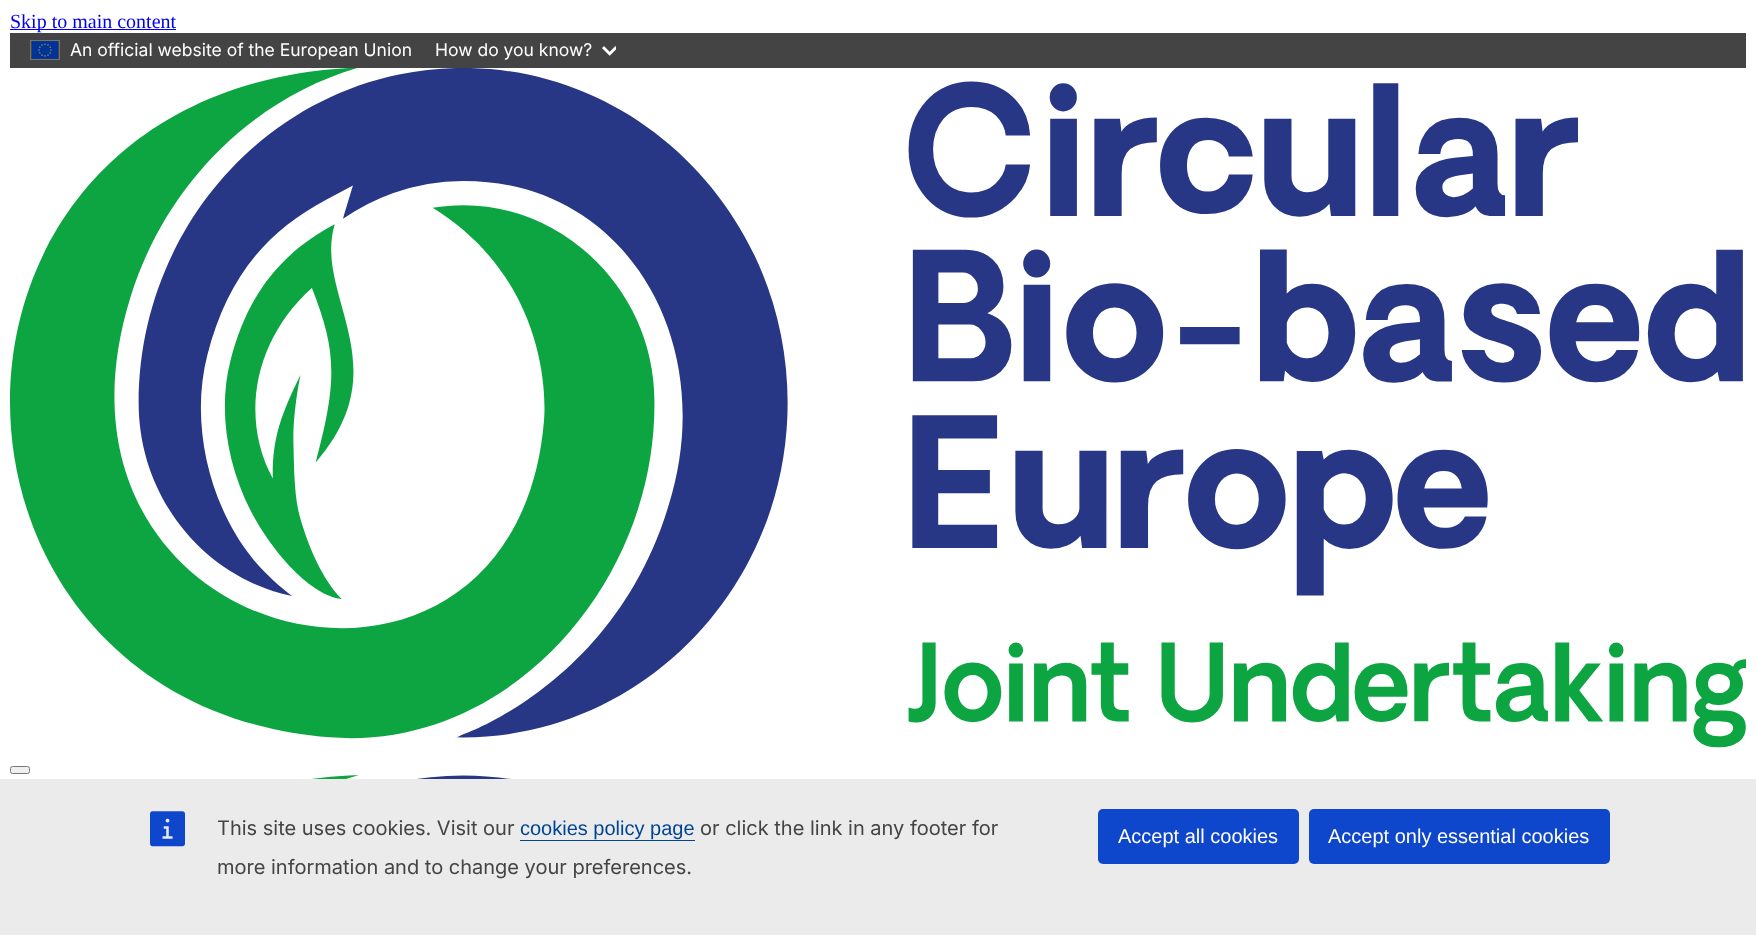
async function draw(canvas) {
	canvas.width = 1756;
	canvas.height = 935;
	const c = canvas.getContext('2d');
	c.miterLimit = 4;
	c.fontKerning = 'normal';
	async function loadImage(src) {
		const img = new Image();
		img.src = src;
		await img.decode();
		return img;
	}

	c.fillStyle = '#fff';
	c.fillRect(0, 0, 1756, 935);
	c.fillStyle = '#00e';
	c.fillRect(10, 29, 166, 1);
	c.font = '20px Liberation Serif';
	c.fillText('Skip to main content', 10, 28);
	c.fillStyle = '#444';
	c.fillRect(10, 33, 1736, 35);
	c.strokeStyle = '#737373';
	c.strokeRect(30.5, 40.5, 29, 19);
	c.drawImage(await loadImage('img1.png'), 32, 41, 26, 18);
	c.font = '17.5px Inter';
	c.fillStyle = '#fff';
	c.fillText('An official website of the European Union', 70, 56);
	c.fillText('How do you know?', 435, 56);
	c.drawImage(await loadImage('img2.png'), 602, 46, 14, 10);
	c.drawImage(await loadImage('img3.png'), 10, 68, 1736, 680);
	c.fillStyle = '#efefef';
	c.beginPath();
	c.roundRect(10.5, 766.5, 19, 7, 2);
	c.fill();
	c.strokeStyle = '#767676';
	c.stroke();
	c.drawImage(await loadImage('img4.png'), 312, 775, 199, 4);
	c.fillStyle = '#ebebeb';
	c.fillRect(0, 779, 1756, 156);
	c.drawImage(await loadImage('img5.png'), 150, 811, 35, 36);
	c.font = '20px Inter';
	c.fillStyle = '#444';
	c.fillText('This site uses cookies. Visit our', 217, 835);
	c.font = '20px Liberation Sans';
	c.fillStyle = '#004494';
	c.fillText('cookies policy page', 520, 835);
	c.fillRect(520, 840, 175, 1);
	c.font = '20px Inter';
	c.fillStyle = '#444';
	c.fillText('or click the link in any footer for', 700, 835);
	c.fillText('more information and to change your preferences.', 217, 874);
	c.fillStyle = '#0e47cb';
	c.beginPath();
	c.roundRect(1098, 809, 201, 55, 5);
	c.fill();
	c.font = '20px Liberation Sans';
	c.fillStyle = '#fff';
	c.fillText('Accept all cookies', 1118, 843);
	c.fillStyle = '#0e47cb';
	c.beginPath();
	c.roundRect(1309, 809, 301, 55, 5);
	c.fill();
	c.fillStyle = '#fff';
	c.fillText('Accept only essential cookies', 1328, 843);
}

draw(document.querySelector('canvas'));
